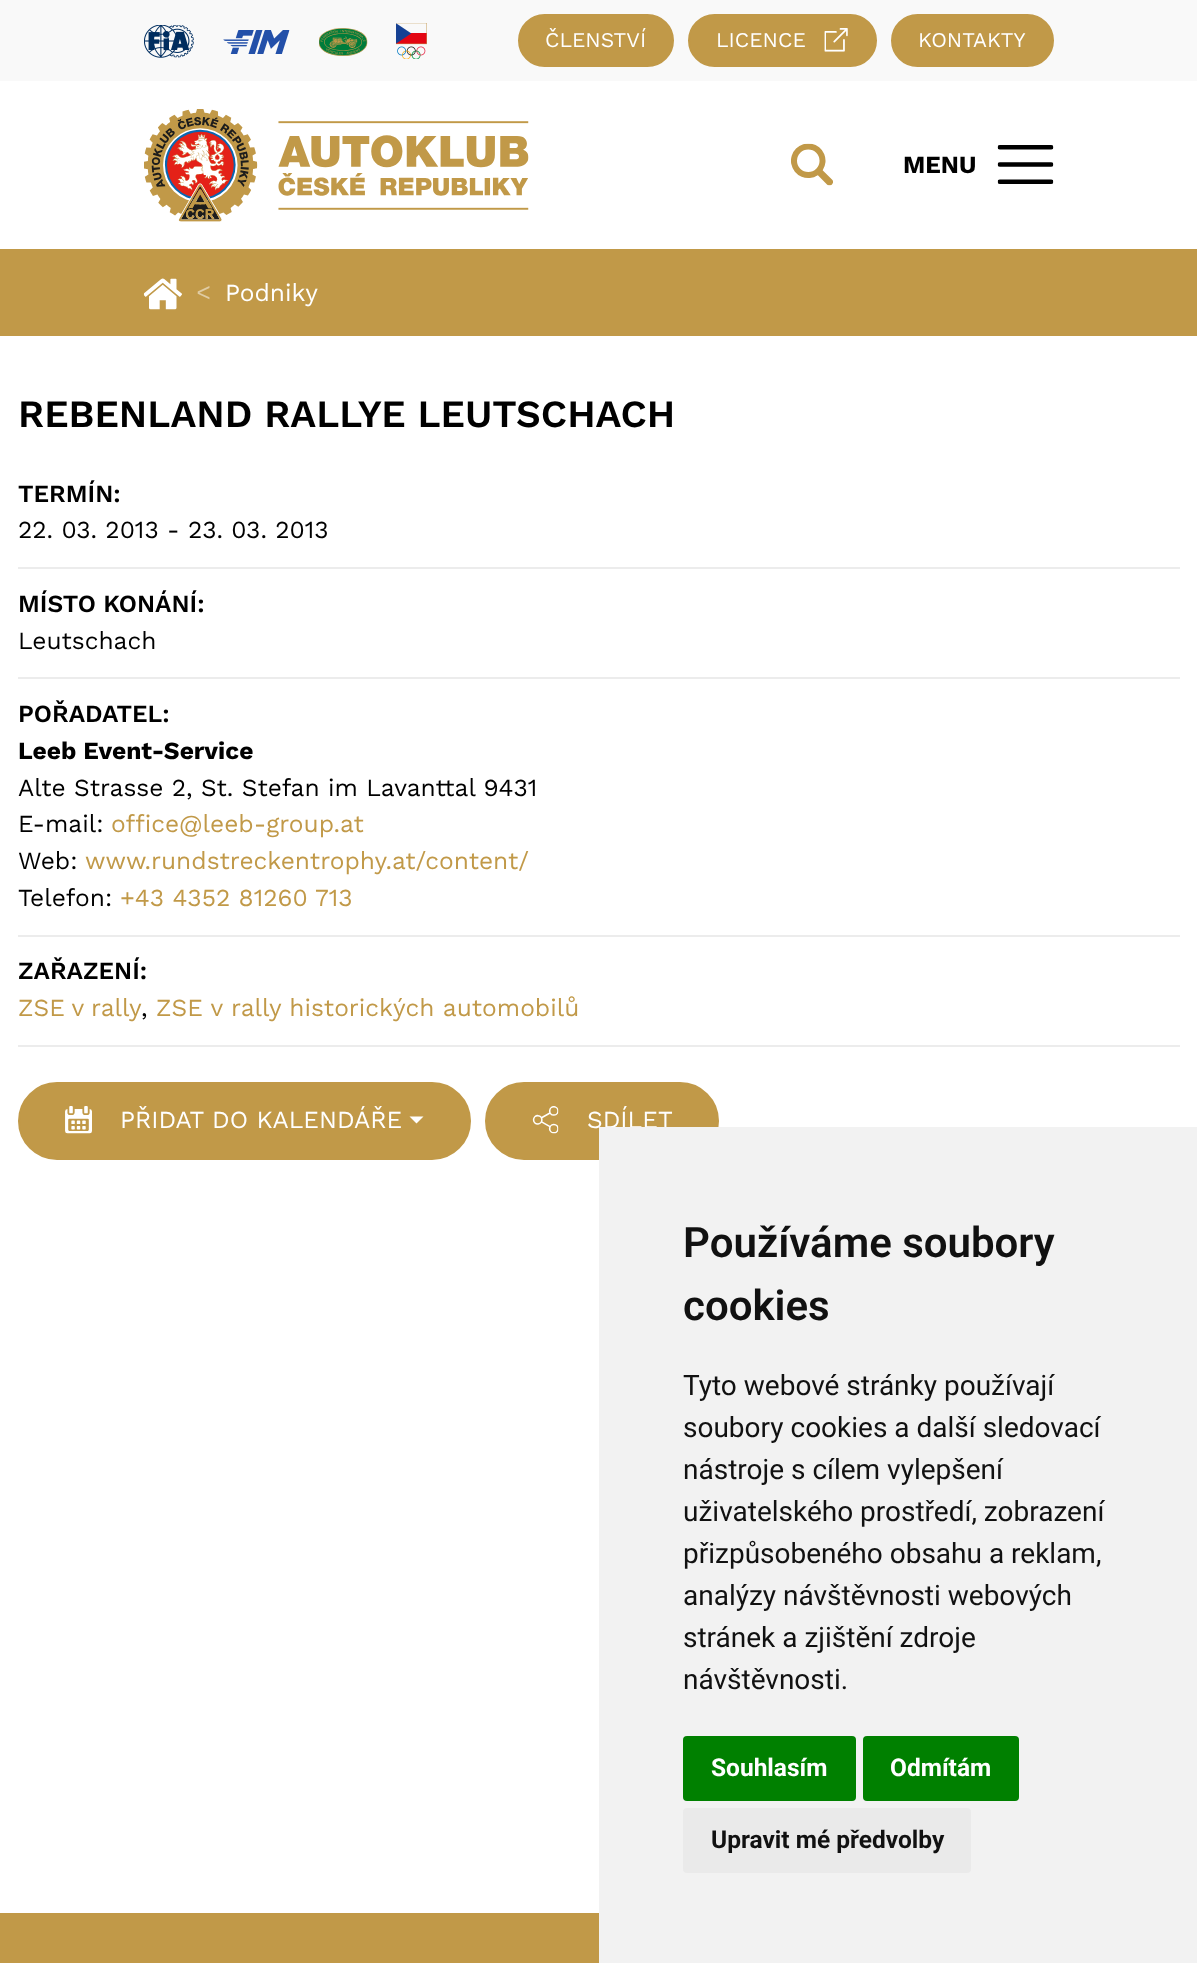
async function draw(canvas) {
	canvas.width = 1197;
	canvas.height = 1963;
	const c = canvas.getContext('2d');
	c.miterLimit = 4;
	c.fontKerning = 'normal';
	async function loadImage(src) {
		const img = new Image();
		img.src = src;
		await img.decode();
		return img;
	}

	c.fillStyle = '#fff';
	c.fillRect(0, 0, 1197, 1963);
	c.fillStyle = '#f9f9f9';
	c.fillRect(0, 0, 1197, 81);
	c.drawImage(await loadImage('img1.png'), 144, 25, 50, 33);
	c.drawImage(await loadImage('img2.png'), 223, 30, 67, 24);
	c.drawImage(await loadImage('img3.png'), 319, 28, 49, 28);
	c.drawImage(await loadImage('img4.png'), 396, 23, 31, 36);
	c.fillStyle = '#c19948';
	c.beginPath();
	c.roundRect(519, 15, 154, 51, 25.5);
	c.fill();
	c.strokeStyle = '#c19948';
	c.lineWidth = 2;
	c.stroke();
	c.font = '21px Work Sans';
	c.fillStyle = '#fff';
	c.fillText('ČLENSTVÍ', 545, 47);
	c.fillStyle = '#c19948';
	c.beginPath();
	c.roundRect(689, 15, 187, 51, 25.5);
	c.fill();
	c.stroke();
	c.fillStyle = '#fff';
	c.fillText('LICENCE', 716, 47);
	c.drawImage(await loadImage('img5.png'), 824, 28, 24, 24);
	c.fillStyle = '#c19948';
	c.beginPath();
	c.roundRect(892, 15, 161, 51, 25.5);
	c.fill();
	c.stroke();
	c.fillStyle = '#fff';
	c.fillText('KONTAKTY', 918, 47);
	c.drawImage(await loadImage('img6.png'), 144, 109, 385, 113);
	c.drawImage(await loadImage('img7.png'), 791, 143, 42, 43);
	c.font = 'bold 24.5px Work Sans';
	c.fillStyle = '#000';
	c.fillText('MENU', 903, 173);
	c.drawImage(await loadImage('img8.png'), 997, 145, 57, 39);
	c.fillStyle = '#c19948';
	c.fillRect(0, 249, 1197, 87);
	c.drawImage(await loadImage('img9.png'), 143, 278, 39, 32);
	c.font = '24.5px Work Sans';
	c.fillStyle = '#e0cca4';
	c.fillText('<', 196, 300);
	c.fillStyle = '#fff';
	c.fillText('Podniky', 225, 301);
	c.font = '600 38.5px Work Sans';
	c.fillStyle = '#000';
	c.fillText('REBENLAND RALLYE LEUTSCHACH', 18, 427);
	c.fillStyle = '#ececec';
	c.fillRect(18, 567, 1162, 2);
	c.font = '600 24.5px Work Sans';
	c.fillStyle = '#000';
	c.fillText('TERMÍN:', 18, 502);
	c.font = '24.5px Work Sans';
	c.fillText('22. 03. 2013 - 23. 03. 2013', 18, 538);
	c.fillStyle = '#ececec';
	c.fillRect(18, 677, 1162, 2);
	c.font = '600 24.5px Work Sans';
	c.fillStyle = '#000';
	c.fillText('MÍSTO KONÁNÍ:', 18, 612);
	c.font = '24.5px Work Sans';
	c.fillText('Leutschach', 18, 649);
	c.fillStyle = '#ececec';
	c.fillRect(18, 935, 1162, 2);
	c.font = '600 24.5px Work Sans';
	c.fillStyle = '#000';
	c.fillText('POŘADATEL:', 18, 722);
	c.font = 'bold 24.5px Work Sans';
	c.fillText('Leeb Event-Service', 18, 759);
	c.font = '24.5px Work Sans';
	c.fillText('Alte Strasse 2, St. Stefan im Lavanttal 9431', 18, 796);
	c.fillText('E-mail:', 18, 832);
	c.fillStyle = '#c19948';
	c.fillText('office@leeb-group.at', 111, 832);
	c.fillStyle = '#000';
	c.fillText('Web:', 18, 869);
	c.fillStyle = '#c19948';
	c.fillText('www.rundstreckentrophy.at/content/', 85, 869);
	c.fillStyle = '#000';
	c.fillText('Telefon:', 18, 906);
	c.fillStyle = '#c19948';
	c.fillText('+43 4352 81260 713', 120, 906);
	c.fillStyle = '#ececec';
	c.fillRect(18, 1045, 1162, 2);
	c.font = '600 24.5px Work Sans';
	c.fillStyle = '#000';
	c.fillText('ZAŘAZENÍ:', 18, 979);
	c.wordSpacing = '-1px';
	c.font = '24.5px Work Sans';
	c.fillStyle = '#c19948';
	c.fillText('ZSE v rally', 18, 1016);
	c.wordSpacing = '0px';
	c.fillStyle = '#000';
	c.fillText(',', 141, 1016);
	c.fillStyle = '#c19948';
	c.fillText('ZSE v rally historických automobilů', 156, 1016);
	c.beginPath();
	c.roundRect(19, 1083, 451, 76, 38);
	c.fill();
	c.stroke();
	c.drawImage(await loadImage('img10.png'), 65, 1106, 27, 28);
	c.fillStyle = '#fff';
	c.fillText('PŘIDAT DO KALENDÁŘE', 120, 1128);
	c.beginPath();
	c.moveTo(409.5, 1116.5);
	c.lineTo(423.5, 1116.5);
	c.lineTo(416.5, 1123.5);
	c.closePath();
	c.fill();
	c.fillStyle = '#c19948';
	c.beginPath();
	c.roundRect(486, 1083, 232, 76, 38);
	c.fill();
	c.stroke();
	c.drawImage(await loadImage('img11.png'), 532, 1106, 27, 28);
	c.fillStyle = '#fff';
	c.fillText('SDÍLET', 587, 1128);
	c.fillStyle = '#c19948';
	c.fillRect(0, 1913, 599, 50);
	c.fillStyle = '#f2f2f2';
	c.fillRect(599, 1127, 598, 836);
	c.font = '600 42px Roboto';
	c.fillStyle = '#111';
	c.fillText('Používáme soubory', 683, 1257);
	c.fillText('cookies', 683, 1320);
	c.font = '28px Roboto';
	for (const [text, x, y] of [
		['Tyto webové stránky používají', 683, 1395],
		['soubory cookies a další sledovací', 683, 1437],
		['nástroje s cílem vylepšení', 683, 1479],
		['uživatelského prostředí, zobrazení', 683, 1521],
		['přizpůsobeného obsahu a reklam,', 683, 1563],
		['analýzy návštěvnosti webových', 683, 1605],
		['stránek a zjištění zdroje', 683, 1647],
		['návštěvnosti.', 683, 1689],
	]) {
		c.fillText(text, x, y);
	}
	c.fillStyle = '#008000';
	c.beginPath();
	c.roundRect(683, 1736, 173, 65, 4);
	c.fill();
	c.font = 'bold 24.5px Roboto';
	c.fillStyle = '#fff';
	c.fillText('Souhlasím', 711, 1776);
	c.fillStyle = '#008000';
	c.beginPath();
	c.roundRect(863, 1736, 156, 65, 4);
	c.fill();
	c.fillStyle = '#fff';
	c.fillText('Odmítám', 890, 1776);
	c.fillStyle = '#eaeaea';
	c.beginPath();
	c.roundRect(683, 1808, 288, 65, 4);
	c.fill();
	c.fillStyle = '#111';
	c.fillText('Upravit mé předvolby', 711, 1848);
}

draw(document.querySelector('canvas'));
